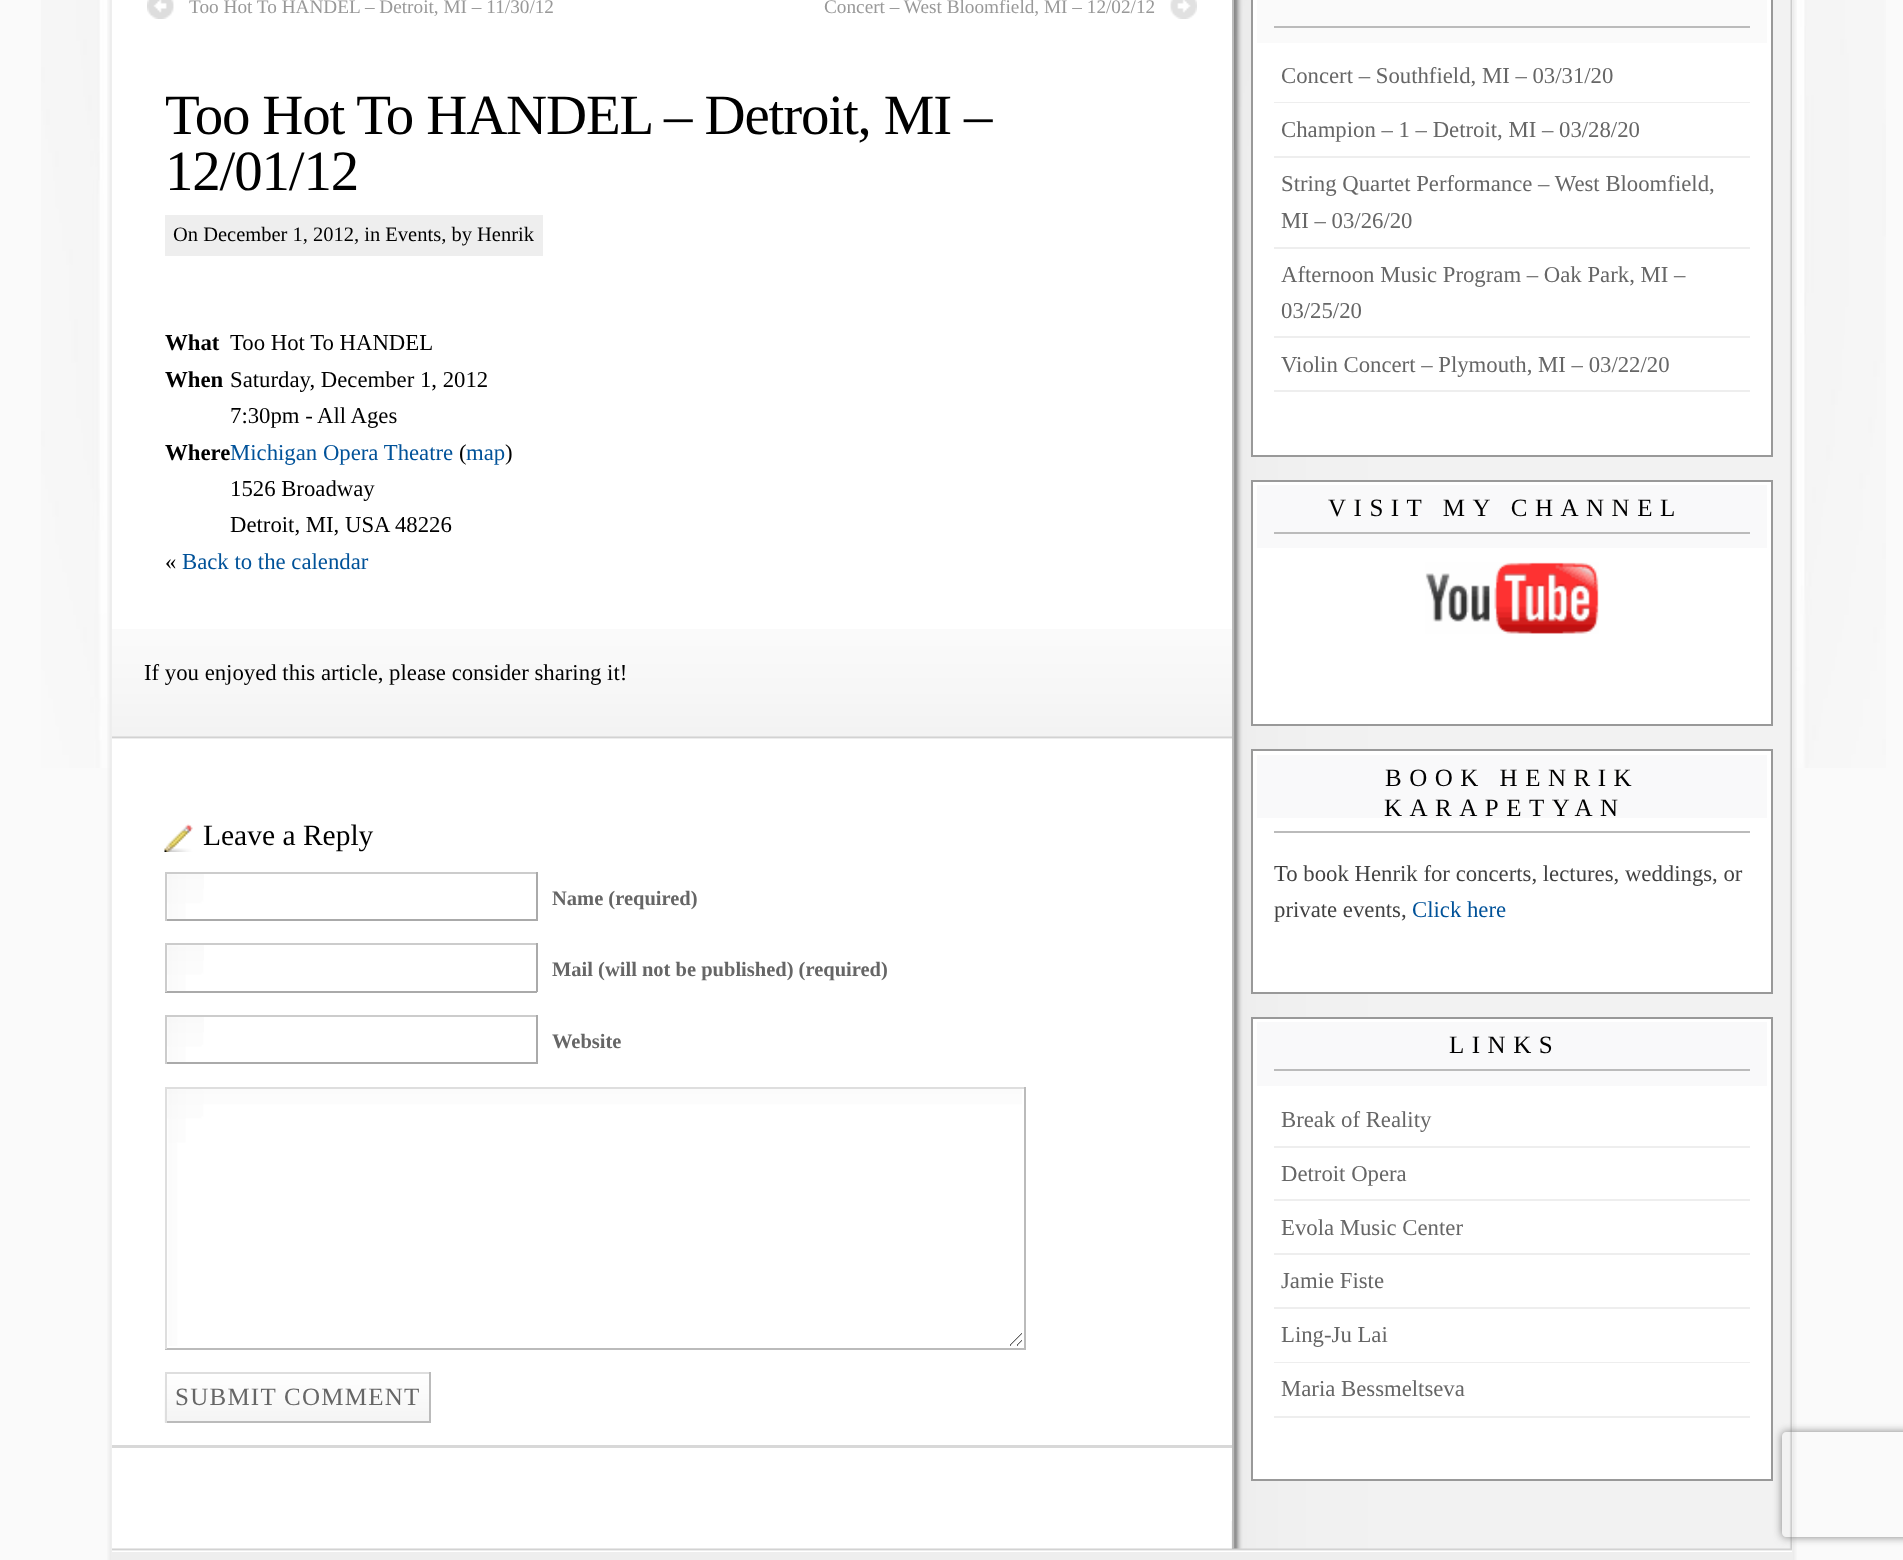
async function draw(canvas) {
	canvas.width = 1903;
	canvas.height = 1560;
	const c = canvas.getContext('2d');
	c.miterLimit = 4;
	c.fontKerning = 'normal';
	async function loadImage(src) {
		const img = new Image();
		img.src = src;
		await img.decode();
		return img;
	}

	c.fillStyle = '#fafafa';
	c.fillRect(0, 0, 1903, 1560);
	c.drawImage(await loadImage('img1.png'), 41, 0, 1845, 768);
	c.drawImage(await loadImage('img2.png'), 107, 0, 1690, 1560);
	c.fillStyle = '#fff';
	c.fillRect(112, 1521, 1, 28);
	c.drawImage(await loadImage('img3.png'), 1231, 0, 561, 1549);
	c.fillRect(112, 0, 1120, 1521);
	c.drawImage(await loadImage('img4.png'), 147, 0, 27, 19);
	c.font = '19.25px Liberation Serif';
	c.fillStyle = '#999';
	c.fillText('Too Hot To HANDEL – Detroit, MI – 11/30/12', 189, 13);
	c.drawImage(await loadImage('img5.png'), 1170, 0, 27, 19);
	c.fillText('Concert – West Bloomfield, MI – 12/02/12', 824, 13);
	c.drawImage(await loadImage('img6.png'), 112, 629, 1120, 108);
	c.letterSpacing = '-1.15px';
	c.font = '56.9px Liberation Serif';
	c.fillStyle = '#000';
	c.fillText('Too Hot To HANDEL – Detroit, MI –', 165, 134);
	c.fillText('12/01/12', 165, 190);
	c.fillStyle = '#eee';
	c.fillRect(165, 215, 378, 41);
	c.letterSpacing = '0px';
	c.font = '20.5px Liberation Serif';
	c.fillStyle = '#000';
	c.fillText('On December 1, 2012, in Events, by Henrik', 173, 241);
	c.font = 'bold 22.75px Liberation Serif';
	c.fillText('What', 165, 350);
	c.font = '22.75px Liberation Serif';
	c.fillText('Too Hot To HANDEL', 230, 350);
	c.font = 'bold 22.75px Liberation Serif';
	c.fillText('When', 165, 387);
	c.font = '22.75px Liberation Serif';
	for (const [text, x, y] of [
		['Saturday, December 1, 2012', 230, 387],
		['7:30pm -', 230, 423],
		['All Ages', 317, 423],
	]) {
		c.fillText(text, x, y);
	}
	c.font = 'bold 22.75px Liberation Serif';
	c.fillText('Where', 165, 460);
	c.font = '22.75px Liberation Serif';
	c.fillStyle = '#005299';
	c.fillText('Michigan Opera Theatre', 230, 460);
	c.fillStyle = '#000';
	c.fillText('(', 459, 460);
	c.fillStyle = '#005299';
	c.fillText('map', 466, 460);
	c.fillStyle = '#000';
	for (const [text, x, y] of [
		[')', 505, 460],
		['1526 Broadway', 230, 496],
		['Detroit, MI, USA 48226', 230, 532],
		['«', 165, 569],
	]) {
		c.fillText(text, x, y);
	}
	c.fillStyle = '#005299';
	c.fillText('Back to the calendar', 182, 569);
	c.fillStyle = '#000';
	c.fillText('If you enjoyed this article, please consider sharing it!', 144, 680);
	c.drawImage(await loadImage('img7.png'), 112, 736, 1120, 4);
	c.drawImage(await loadImage('img8.png'), 164, 824, 29, 28);
	c.font = '29.5px Liberation Serif';
	c.fillText('Leave a Reply', 203, 845);
	c.drawImage(await loadImage('img9.png'), 167, 874, 37, 45);
	for (const [x, y, w, h, color] of [
		[165, 872, 372, 2, '#ccc'],
		[536, 872, 2, 49, '#aaa'],
		[165, 919, 372, 2, '#aaa'],
		[165, 872, 2, 49, '#ccc'],
	]) {
		c.fillStyle = color;
		c.fillRect(x, y, w, h);
	}
	c.font = 'bold 20.5px Liberation Serif';
	c.fillStyle = '#666';
	c.fillText('Name (required)', 552, 905);
	c.drawImage(await loadImage('img10.png'), 167, 945, 37, 46);
	for (const [x, y, w, h, color] of [
		[165, 943, 372, 2, '#ccc'],
		[536, 943, 2, 49, '#aaa'],
		[165, 991, 372, 2, '#aaa'],
		[165, 943, 2, 49, '#ccc'],
	]) {
		c.fillStyle = color;
		c.fillRect(x, y, w, h);
	}
	c.fillStyle = '#666';
	c.fillText('Mail (will not be published) (required)', 552, 976);
	c.drawImage(await loadImage('img11.png'), 167, 1017, 37, 45);
	for (const [x, y, w, h, color] of [
		[165, 1015, 372, 2, '#ccc'],
		[536, 1015, 2, 49, '#aaa'],
		[165, 1062, 372, 2, '#aaa'],
		[165, 1015, 2, 49, '#ccc'],
	]) {
		c.fillStyle = color;
		c.fillRect(x, y, w, h);
	}
	c.fillStyle = '#666';
	c.fillText('Website', 552, 1048);
	c.drawImage(await loadImage('img12.png'), 167, 1089, 855, 257);
	for (const [x, y, w, h, color] of [
		[165, 1087, 861, 2, '#dedede'],
		[1024, 1087, 2, 262, '#bbb'],
		[165, 1348, 861, 2, '#bbb'],
		[165, 1087, 2, 262, '#dedede'],
	]) {
		c.fillStyle = color;
		c.fillRect(x, y, w, h);
	}
	c.drawImage(await loadImage('img13.png'), 164, 1373, 265, 50);
	for (const [x, y, w, h, color] of [
		[165, 1372, 266, 2, '#dedede'],
		[429, 1372, 2, 51, '#bbb'],
		[165, 1421, 266, 2, '#bbb'],
		[165, 1372, 2, 51, '#dedede'],
	]) {
		c.fillStyle = color;
		c.fillRect(x, y, w, h);
	}
	c.letterSpacing = '1.25px';
	c.font = '25px Liberation Serif';
	c.fillStyle = '#666';
	c.fillText('SUBMIT COMMENT', 175, 1405);
	c.fillStyle = '#d8d8d8';
	c.fillRect(112, 1445, 1120, 3);
	c.drawImage(await loadImage('img14.png'), 1234, 0, 557, 150);
	c.drawImage(await loadImage('img16.png'), 112, 1548, 1680, 4);
	c.fillStyle = '#bbb';
	c.fillRect(1232, 0, 2, 1549);
	c.fillStyle = '#fff';
	c.beginPath();
	c.rect(1252, -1, 520, 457);
	c.fill();
	c.strokeStyle = '#999';
	c.lineWidth = 2;
	c.stroke();
	for (const [x, y, w, h, color] of [
		[1257, 0, 510, 43, '#fafafa'],
		[1274, 26, 476, 2, '#bbb'],
		[1274, 102, 476, 1, '#eee'],
	]) {
		c.fillStyle = color;
		c.fillRect(x, y, w, h);
	}
	c.letterSpacing = '0px';
	c.font = '22.75px Liberation Serif';
	c.fillStyle = '#666';
	c.fillText('Concert – Southfield, MI – 03/31/20', 1281, 83);
	c.fillStyle = '#eee';
	c.fillRect(1274, 156, 476, 2);
	c.fillStyle = '#666';
	c.fillText('Champion – 1 – Detroit, MI – 03/28/20', 1281, 137);
	c.fillStyle = '#eee';
	c.fillRect(1274, 247, 476, 2);
	c.fillStyle = '#666';
	c.fillText('String Quartet Performance – West Bloomfield,', 1281, 191);
	c.fillText('MI – 03/26/20', 1281, 228);
	c.fillStyle = '#eee';
	c.fillRect(1274, 336, 476, 2);
	c.fillStyle = '#666';
	c.fillText('Afternoon Music Program – Oak Park, MI –', 1281, 282);
	c.fillText('03/25/20', 1281, 318);
	c.fillStyle = '#eee';
	c.fillRect(1274, 390, 476, 2);
	c.fillStyle = '#666';
	c.fillText('Violin Concert – Plymouth, MI – 03/22/20', 1281, 372);
	c.fillStyle = '#fff';
	c.beginPath();
	c.rect(1252, 481, 520, 244);
	c.fill();
	c.stroke();
	c.fillStyle = '#f9f9fa';
	c.fillRect(1257, 485, 510, 63);
	c.fillStyle = '#bbb';
	c.fillRect(1274, 532, 476, 2);
	c.letterSpacing = '7.5px';
	c.font = '25px Liberation Serif';
	c.fillStyle = '#000';
	c.fillText('VISIT MY CHANNEL', 1328, 516);
	c.drawImage(await loadImage('img15.png'), 1425, 562, 174, 72);
	c.fillStyle = '#fff';
	c.beginPath();
	c.rect(1252, 750, 520, 243);
	c.fill();
	c.stroke();
	c.fillStyle = '#f9f9fa';
	c.fillRect(1257, 755, 510, 63);
	c.fillStyle = '#bbb';
	c.fillRect(1274, 831, 476, 2);
	c.fillStyle = '#000';
	c.fillText('BOOK HENRIK', 1385, 786);
	c.fillText('KARAPETYAN', 1384, 816);
	c.letterSpacing = '0px';
	c.font = '22.75px Liberation Serif';
	c.fillStyle = '#424242';
	c.fillText('To book Henrik for concerts, lectures, weddings, or', 1274, 881);
	c.fillText('private events,', 1274, 917);
	c.fillStyle = '#005299';
	c.fillText('Click here', 1412, 917);
	c.fillStyle = '#fff';
	c.beginPath();
	c.rect(1252, 1018, 520, 462);
	c.fill();
	c.stroke();
	c.fillStyle = '#f9f9fa';
	c.fillRect(1257, 1022, 510, 64);
	c.fillStyle = '#bbb';
	c.fillRect(1274, 1069, 476, 2);
	c.letterSpacing = '7.5px';
	c.font = '25px Liberation Serif';
	c.fillStyle = '#000';
	c.fillText('LINKS', 1449, 1053);
	c.fillStyle = '#eee';
	c.fillRect(1274, 1146, 476, 2);
	c.letterSpacing = '0px';
	c.font = '22.75px Liberation Serif';
	c.fillStyle = '#666';
	c.fillText('Break of Reality', 1281, 1127);
	c.fillStyle = '#eee';
	c.fillRect(1274, 1199, 476, 2);
	c.fillStyle = '#666';
	c.fillText('Detroit Opera', 1281, 1181);
	c.fillStyle = '#eee';
	c.fillRect(1274, 1253, 476, 2);
	c.fillStyle = '#666';
	c.fillText('Evola Music Center', 1281, 1235);
	c.fillStyle = '#eee';
	c.fillRect(1274, 1307, 476, 2);
	c.fillStyle = '#666';
	c.fillText('Jamie Fiste', 1281, 1288);
	c.fillStyle = '#eee';
	c.fillRect(1274, 1362, 476, 1);
	c.fillStyle = '#666';
	c.fillText('Ling-Ju Lai', 1281, 1342);
	c.fillStyle = '#eee';
	c.fillRect(1274, 1416, 476, 2);
	c.fillStyle = '#666';
	c.fillText('Maria Bessmeltseva', 1281, 1396);
	c.fillStyle = '#eee';
	c.fillRect(112, 1552, 1680, 8);
	c.save();
	c.beginPath();
	c.moveTo(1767, 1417);
	c.lineTo(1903, 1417);
	c.lineTo(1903, 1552);
	c.lineTo(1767, 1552);
	c.closePath();
	c.moveTo(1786, 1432);
	c.lineTo(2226, 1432);
	c.bezierCurveTo(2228, 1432, 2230, 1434, 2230, 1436);
	c.lineTo(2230, 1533);
	c.bezierCurveTo(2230, 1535, 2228, 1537, 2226, 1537);
	c.lineTo(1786, 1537);
	c.bezierCurveTo(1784, 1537, 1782, 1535, 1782, 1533);
	c.lineTo(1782, 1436);
	c.bezierCurveTo(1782, 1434, 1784, 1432, 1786, 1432);
	c.closePath();
	c.clip('evenodd');
	c.fillStyle = '#808080';
	c.filter = 'blur(4.5px)';
	c.beginPath();
	c.roundRect(1782, 1432, 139, 105, 4);
	c.fill();
	c.filter = 'none';
	c.restore();
}

draw(document.querySelector('canvas'));
